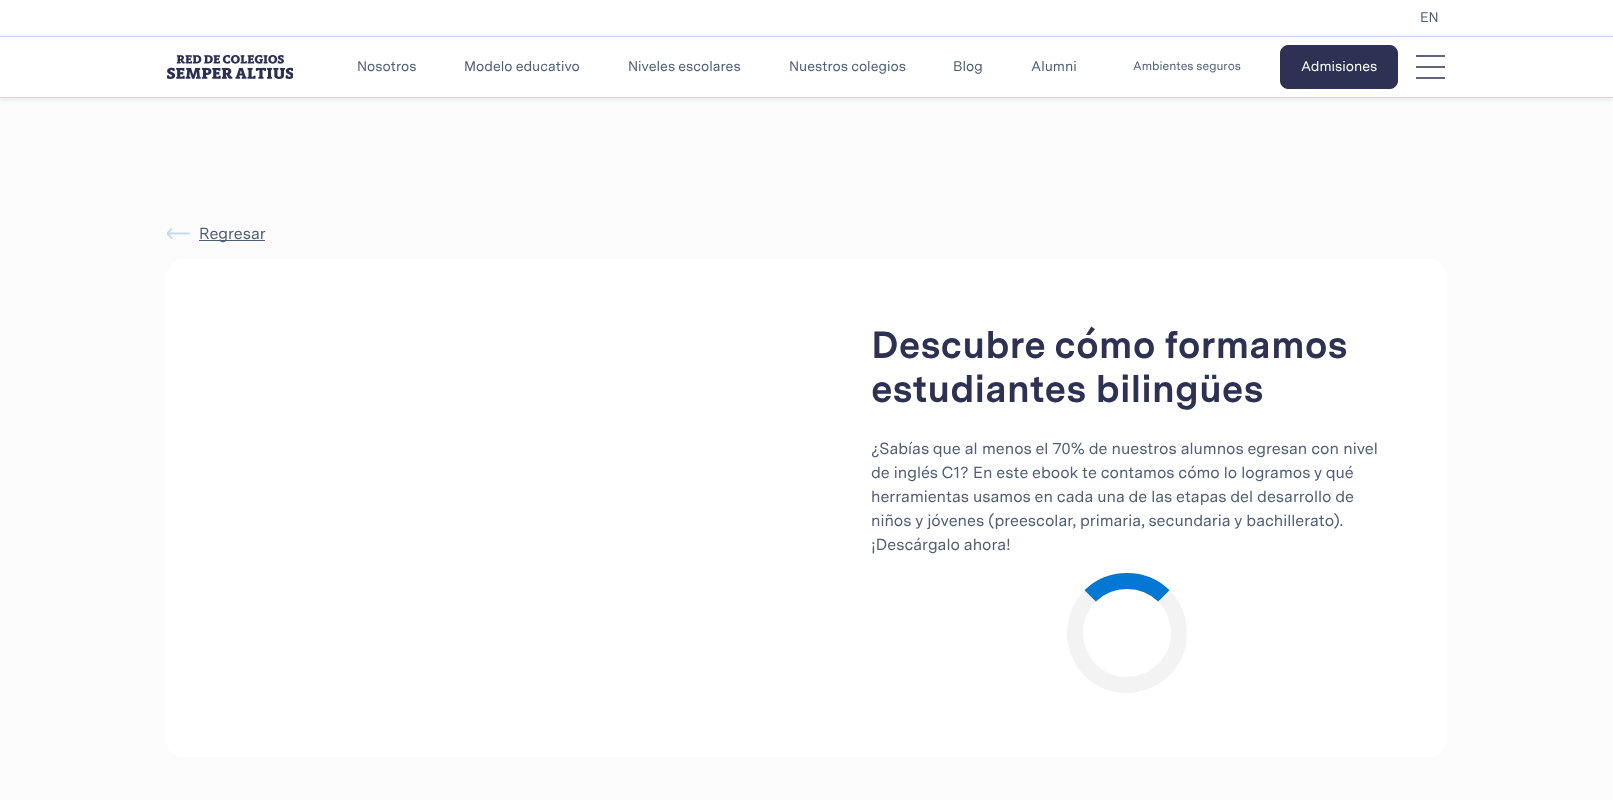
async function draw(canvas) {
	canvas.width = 1613;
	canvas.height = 800;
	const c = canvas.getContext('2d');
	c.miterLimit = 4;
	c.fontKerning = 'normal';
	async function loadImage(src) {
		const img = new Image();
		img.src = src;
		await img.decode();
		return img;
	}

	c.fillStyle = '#fcfcfc';
	c.fillRect(0, 0, 1613, 800);
	c.fillStyle = '#00000014';
	c.filter = 'blur(2.5px)';
	c.beginPath();
	c.rect(0, 2, 1613, 98);
	c.fill();
	c.filter = 'none';
	for (const [x, y, w, h, color] of [
		[0, 0, 1613, 97, '#fff'],
		[0, 97, 1613, 1, '#c7dbf0'],
		[0, 36, 1613, 1, '#c7dbf0'],
	]) {
		c.fillStyle = color;
		c.fillRect(x, y, w, h);
	}
	c.font = '14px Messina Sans';
	c.fillStyle = '#4e5d78';
	c.fillText('EN', 1420, 22);
	c.drawImage(await loadImage('img1.png'), 167, 55, 126, 24);
	for (const [text, x, y] of [
		['Nosotros', 357, 71],
		['Modelo educativo', 464, 71],
		['Niveles escolares', 628, 71],
		['Nuestros colegios', 789, 71],
		['Blog', 953, 71],
		['Alumni', 1031, 71],
	]) {
		c.fillText(text, x, y);
	}
	c.font = '12px Messina Sans';
	c.fillText('Ambientes seguros', 1133, 70);
	c.fillStyle = '#2d3153';
	c.beginPath();
	c.roundRect(1280.5, 45.5, 117, 43, 7.5);
	c.fill();
	c.strokeStyle = '#2d3153';
	c.stroke();
	c.font = '14px Messina Sans';
	c.fillStyle = '#fff';
	c.fillText('Admisiones', 1301, 71);
	for (const [x, y, w, h, color] of [
		[1416, 66, 29, 2, '#61647d'],
		[1416, 77, 29, 2, '#61647d'],
		[1416, 55, 29, 2, '#61647d'],
	]) {
		c.fillStyle = color;
		c.fillRect(x, y, w, h);
	}
	c.save();
	c.beginPath();
	c.rect(167, 224, 24, 19);
	c.clip();
	c.beginPath();
	c.moveTo(171.5, 238);
	c.lineTo(167, 233.5);
	c.moveTo(167, 233.5);
	c.lineTo(171.5, 229);
	c.moveTo(167, 233.5);
	c.lineTo(189, 233.5);
	c.strokeStyle = '#c7dbf0';
	c.lineWidth = 1.8;
	c.lineCap = 'round';
	c.lineJoin = 'round';
	c.stroke();
	c.restore();
	c.fillStyle = '#4e5d78';
	c.fillRect(199, 240, 66, 1);
	c.font = '16px Messina Sans';
	c.fillText('Regresar', 199, 239);
	c.fillStyle = '#fff';
	c.beginPath();
	c.roundRect(167, 259, 1280, 498, 16);
	c.fill();
	c.font = 'bold 38px Messina Sans';
	c.fillStyle = '#2d3153';
	c.fillText('Descubre cómo formamos', 871, 358);
	c.fillText('estudiantes bilingües', 871, 402);
	c.font = '16px Messina Sans';
	c.fillStyle = '#4e5d78';
	for (const [text, x, y] of [
		['¿Sabías que al menos el 70% de nuestros alumnos egresan con nivel', 871, 454],
		['de inglés C1? En este ebook te contamos cómo lo logramos y qué', 871, 478],
		['herramientas usamos en cada una de las etapas del desarrollo de', 871, 502],
		['niños y jóvenes (preescolar, primaria, secundaria y bachillerato).', 871, 526],
		['¡Descárgalo ahora!', 871, 550],
	]) {
		c.fillText(text, x, y);
	}
	c.beginPath();
	c.moveTo(1090, 596);
	c.bezierCurveTo(1110.5, 576, 1143.5, 576, 1164, 596);
	c.strokeStyle = '#0078d4';
	c.lineWidth = 16;
	c.stroke();
	c.beginPath();
	c.moveTo(1164, 596);
	c.bezierCurveTo(1173.5, 606, 1179, 619.5, 1179, 633);
	c.bezierCurveTo(1179, 679, 1122.5, 702.5, 1090, 670);
	c.bezierCurveTo(1083, 662.5, 1078, 653, 1076, 643);
	c.bezierCurveTo(1072.5, 626.5, 1078, 608.5, 1090, 596);
	c.strokeStyle = '#f3f3f3';
	c.stroke();
}

draw(document.querySelector('canvas'));
